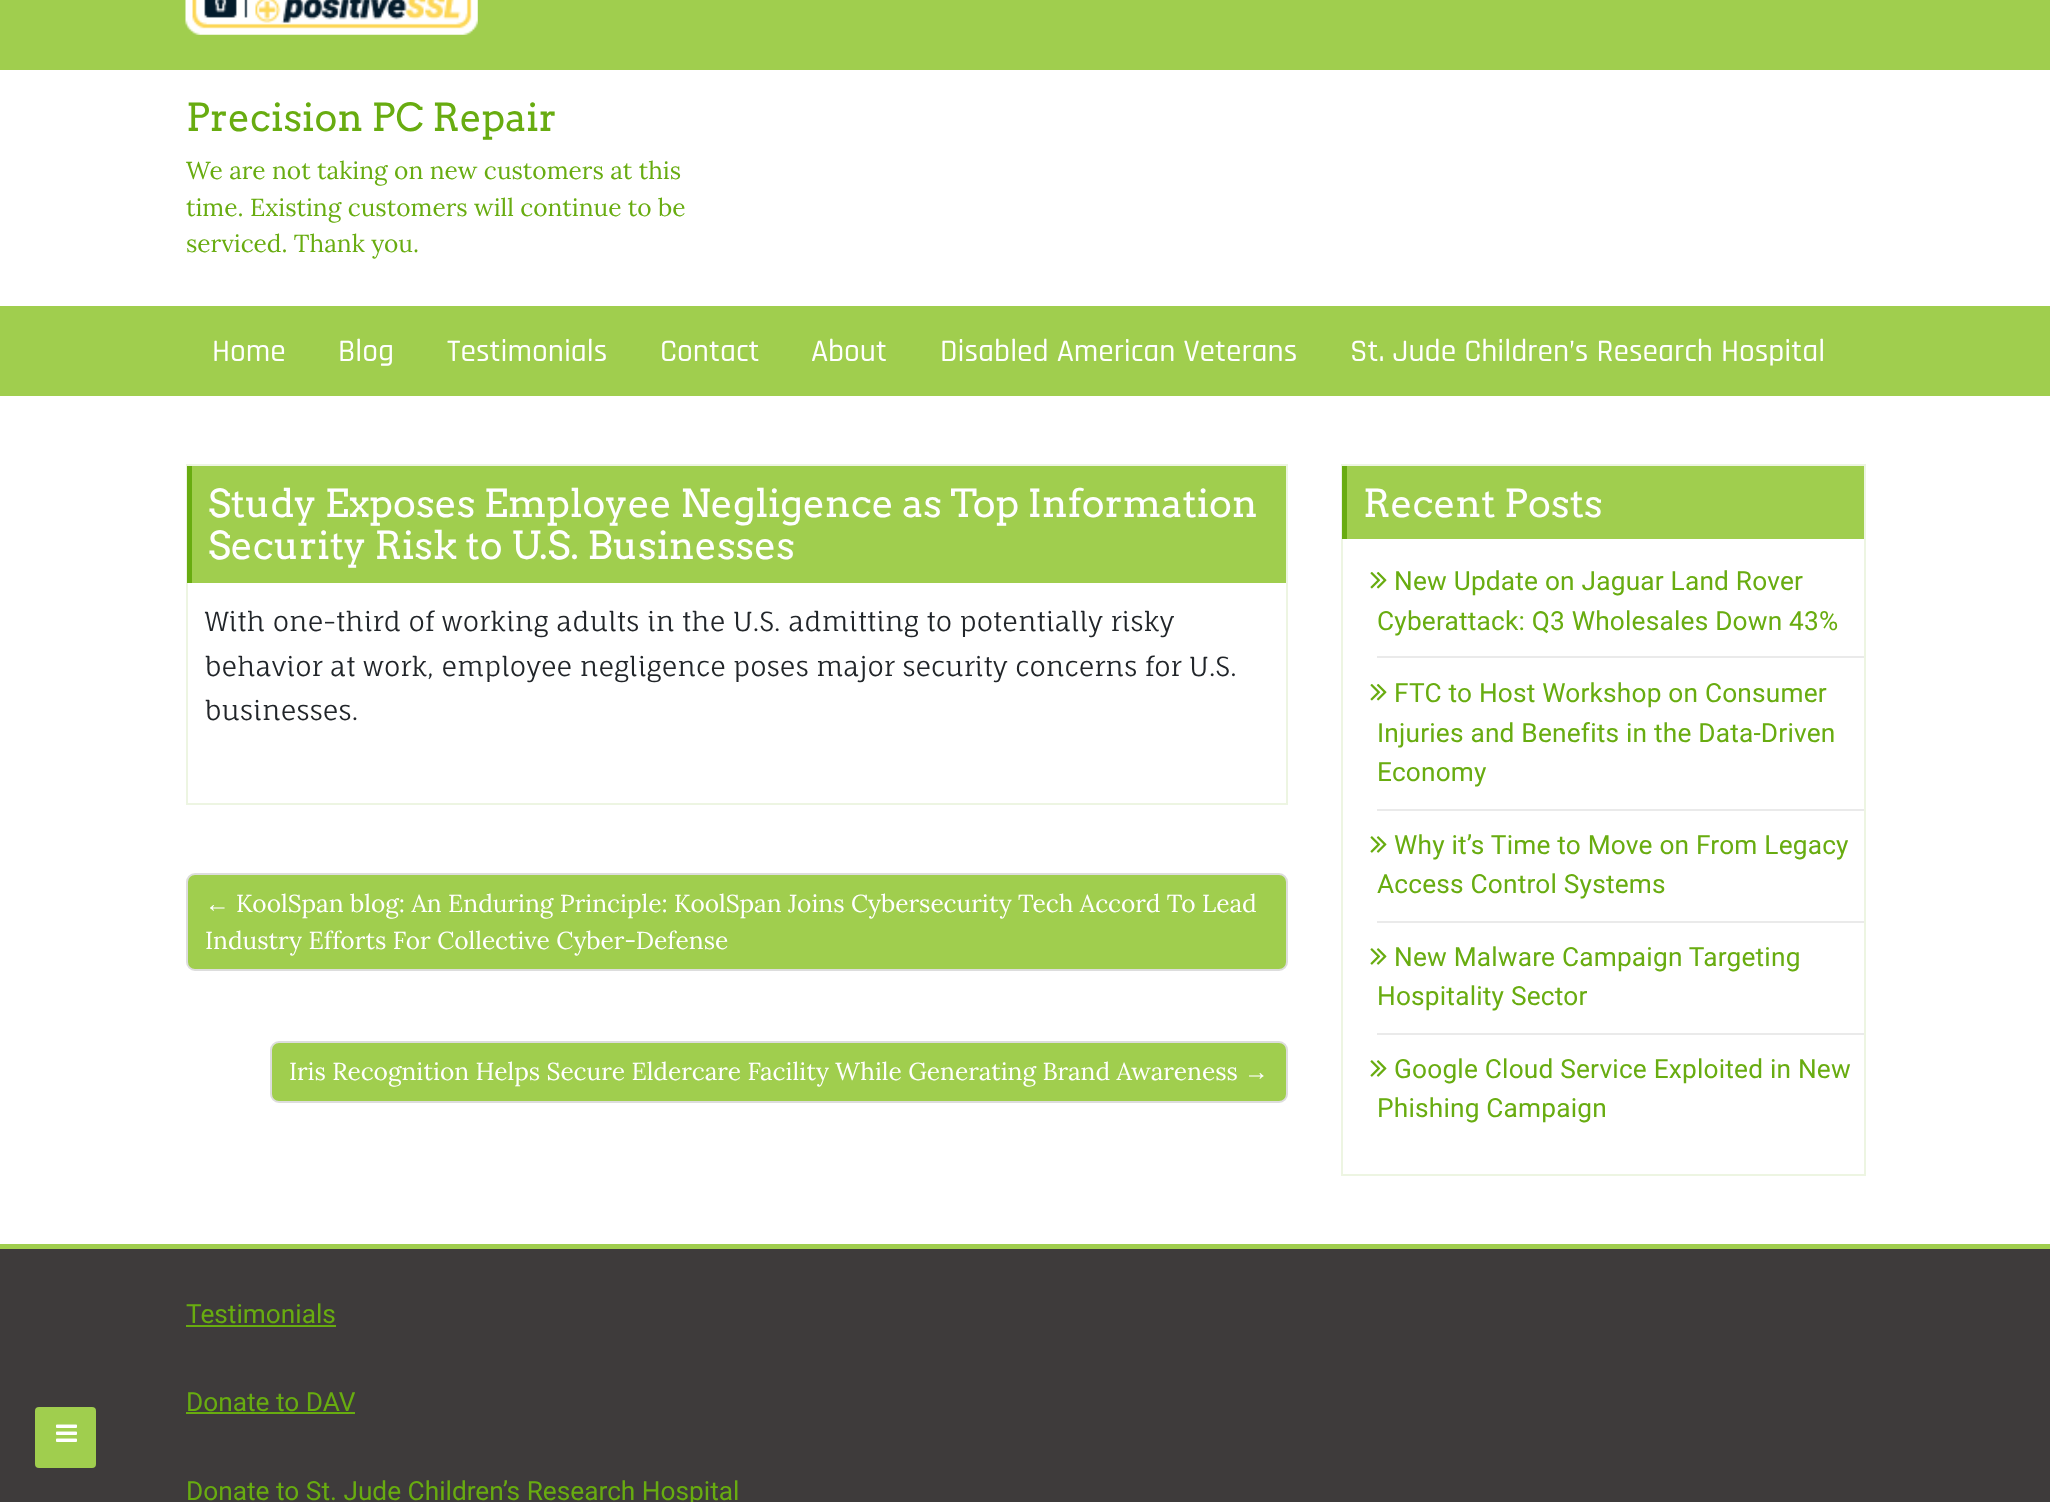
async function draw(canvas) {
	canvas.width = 2050;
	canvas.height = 1502;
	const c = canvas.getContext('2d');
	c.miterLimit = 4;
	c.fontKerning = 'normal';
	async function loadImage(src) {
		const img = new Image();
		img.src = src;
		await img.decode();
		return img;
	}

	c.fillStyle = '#fff';
	c.fillRect(0, 0, 2050, 1502);
	c.fillStyle = '#a0ce4e';
	c.fillRect(0, 0, 2050, 70);
	c.drawImage(await loadImage('img1.png'), 185, 0, 293, 35);
	c.font = '38.5px Arvo';
	c.fillStyle = '#68ac10';
	c.fillText('Precision PC Repair', 186, 131);
	c.font = '24.5px Lora';
	for (const [text, x, y] of [
		['We are not taking on new customers at this', 186, 179],
		['time. Existing customers will continue to be', 186, 216],
		['serviced. Thank you.', 186, 252],
	]) {
		c.fillText(text, x, y);
	}
	c.fillStyle = '#a0ce4e';
	c.fillRect(0, 306, 2050, 90);
	c.font = '500 31.5px Rajdhani';
	c.fillStyle = '#fff';
	for (const [text, x, y] of [
		['Home', 212, 361],
		['Blog', 338, 361],
		['Testimonials', 447, 361],
		['Contact', 660, 361],
		['About', 811, 361],
		['Disabled American Veterans', 940, 361],
		['St. Jude Children’s Research Hospital', 1350, 361],
	]) {
		c.fillText(text, x, y);
	}
	c.strokeStyle = '#edf5e2';
	c.lineWidth = 2;
	c.strokeRect(187, 465, 1100, 339);
	c.fillStyle = '#a0ce4e';
	c.fillRect(192, 466, 1094, 117);
	c.fillStyle = '#68ac10';
	c.fillRect(187, 466, 5, 117);
	c.font = '38.5px Arvo';
	c.fillStyle = '#fff';
	c.fillText('Study Exposes Employee Negligence as Top Information', 208, 517);
	c.fillText('Security Risk to U.S. Businesses', 208, 559);
	c.font = '26.25px Fauna One';
	c.fillStyle = '#212529';
	for (const [text, x, y] of [
		['With one-third of working adults in the U.S. admitting to potentially risky', 205, 631],
		['behavior at work, employee negligence poses major security concerns for U.S.', 205, 676],
		['businesses.', 205, 720],
	]) {
		c.fillText(text, x, y);
	}
	c.fillStyle = '#a0ce4e';
	c.beginPath();
	c.roundRect(187, 874, 1100, 96, 8);
	c.fill();
	c.strokeStyle = '#ddd';
	c.stroke();
	c.font = '24.5px Liberation Serif';
	c.fillStyle = '#fff';
	c.fillText('←', 205, 912);
	c.font = '24.5px Lora';
	c.fillText('KoolSpan blog: An Enduring Principle: KoolSpan Joins Cybersecurity Tech Accord To Lead', 236, 912);
	c.fillText('Industry Efforts For Collective Cyber-Defense', 205, 949);
	c.fillStyle = '#a0ce4e';
	c.beginPath();
	c.roundRect(271, 1042, 1016, 60, 8);
	c.fill();
	c.stroke();
	c.fillStyle = '#fff';
	c.fillText('Iris Recognition Helps Secure Eldercare Facility While Generating Brand Awareness', 289, 1080);
	c.font = '24.5px Liberation Serif';
	c.fillText('→', 1244, 1080);
	c.strokeStyle = '#edf5e2';
	c.strokeRect(1342, 465, 523, 710);
	c.fillStyle = '#a0ce4e';
	c.fillRect(1347, 466, 517, 73);
	c.fillStyle = '#68ac10';
	c.fillRect(1342, 466, 5, 73);
	c.font = '38.5px Arvo';
	c.fillStyle = '#fff';
	c.fillText('Recent Posts', 1363, 517);
	c.fillStyle = '#eaeaea';
	c.fillRect(1377, 656, 487, 2);
	c.drawImage(await loadImage('img2.png'), 1370, 572, 17, 17);
	c.letterSpacing = '0.2px';
	c.font = '26.25px Roboto';
	c.fillStyle = '#68ac10';
	c.fillText('New Update on Jaguar Land Rover', 1394, 590);
	c.fillText('Cyberattack: Q3 Wholesales Down 43%', 1377, 630);
	c.fillStyle = '#eaeaea';
	c.fillRect(1377, 809, 487, 2);
	c.drawImage(await loadImage('img2.png'), 1370, 684, 17, 17);
	c.fillStyle = '#68ac10';
	for (const [text, x, y] of [
		['FTC to Host Workshop on Consumer', 1394, 702],
		['Injuries and Benefits in the Data-Driven', 1377, 742],
		['Economy', 1377, 781],
	]) {
		c.fillText(text, x, y);
	}
	c.fillStyle = '#eaeaea';
	c.fillRect(1377, 921, 487, 2);
	c.drawImage(await loadImage('img3.png'), 1370, 836, 17, 17);
	c.fillStyle = '#68ac10';
	c.fillText('Why it’s Time to Move on From Legacy', 1394, 854);
	c.fillText('Access Control Systems', 1377, 893);
	c.fillStyle = '#eaeaea';
	c.fillRect(1377, 1033, 487, 2);
	c.drawImage(await loadImage('img3.png'), 1370, 948, 17, 17);
	c.fillStyle = '#68ac10';
	c.fillText('New Malware Campaign Targeting', 1394, 966);
	c.fillText('Hospitality Sector', 1377, 1005);
	c.drawImage(await loadImage('img3.png'), 1370, 1060, 17, 17);
	c.fillText('Google Cloud Service Exploited in New', 1394, 1078);
	c.fillText('Phishing Campaign', 1377, 1117);
	c.fillStyle = '#3e3b3b';
	c.fillRect(0, 1249, 2050, 253);
	c.fillStyle = '#a0ce4e';
	c.beginPath();
	c.roundRect(35, 1407, 61, 61, 4);
	c.fill();
	c.drawImage(await loadImage('img4.png'), 56, 1424, 21, 18);
	c.fillRect(0, 1244, 2050, 5);
	c.letterSpacing = '0px';
	c.fillStyle = '#68ac10';
	c.fillText('Testimonials', 186, 1323);
	c.fillRect(186, 1325, 150, 2);
	c.fillText('Donate to DAV', 186, 1411);
	c.fillRect(186, 1412, 169, 2);
	c.fillText('Donate to St. Jude Children’s Research Hospital', 186, 1500);
}

draw(document.querySelector('canvas'));
